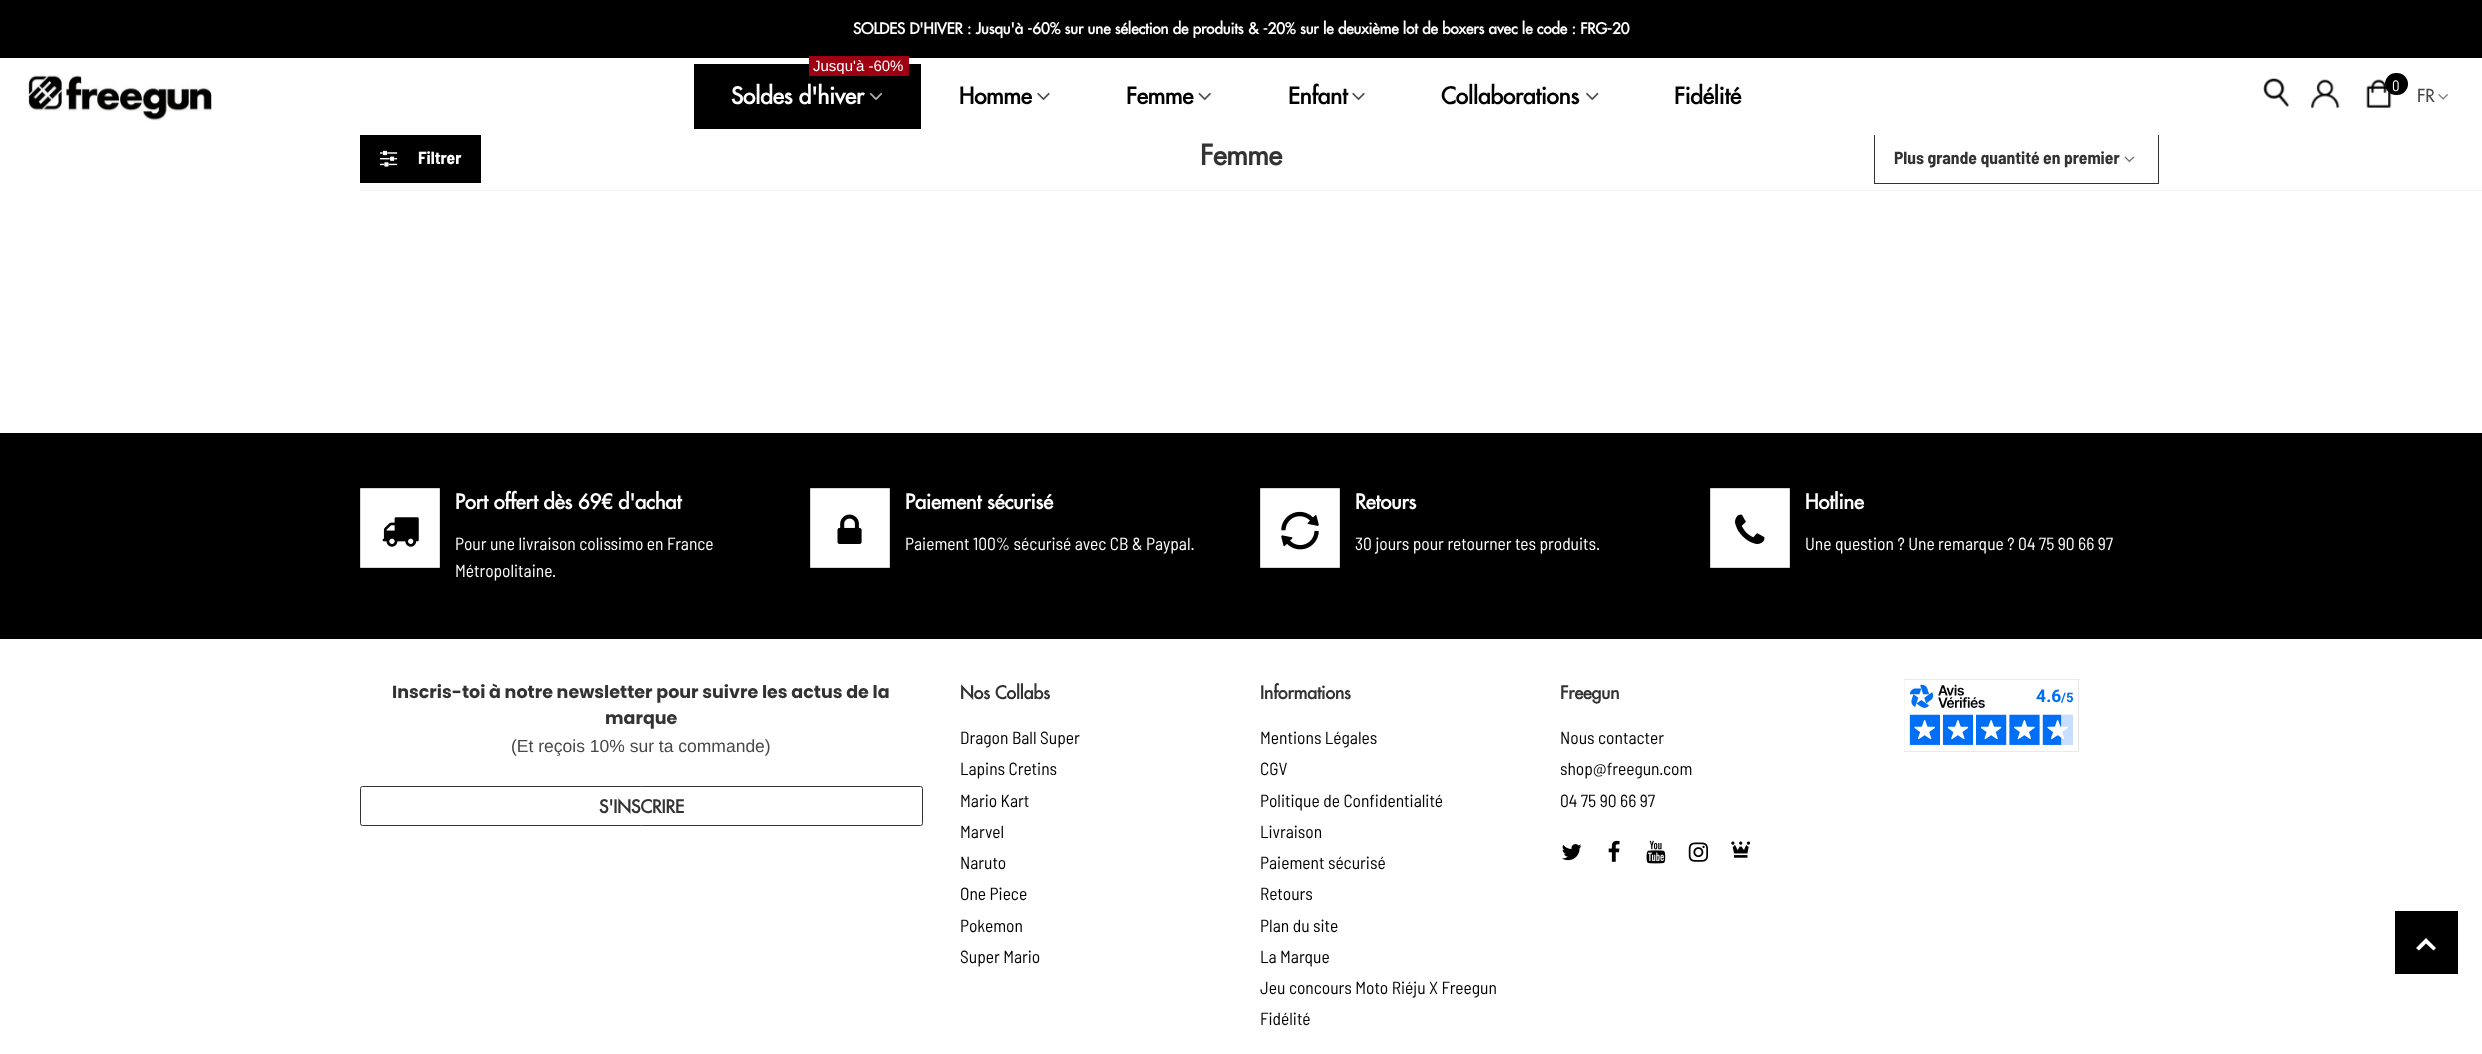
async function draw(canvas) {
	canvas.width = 2482;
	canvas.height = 1054;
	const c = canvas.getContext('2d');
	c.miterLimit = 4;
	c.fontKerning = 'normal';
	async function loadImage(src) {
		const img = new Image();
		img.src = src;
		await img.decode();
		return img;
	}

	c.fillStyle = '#fff';
	c.fillRect(0, 0, 2482, 1054);
	c.fillStyle = '#000';
	c.fillRect(0, 0, 2482, 58);
	c.font = 'bold 15px Futura';
	c.fillStyle = '#fff';
	c.fillText('SOLDES D\'HIVER : Jusqu\'à -60% sur une sélection de produits & -20% sur le deuxième lot de boxers avec le code : FRG-20', 853, 34);
	c.strokeStyle = '#333';
	c.strokeRect(1874.5, 131.5, 284, 52);
	c.fillRect(1874, 131, 285, 4);
	c.drawImage(await loadImage('img1.png'), 27, 75, 185, 46);
	c.fillStyle = '#000';
	c.fillRect(694, 64, 227, 65);
	c.fillStyle = '#9f0011';
	c.fillRect(809, 56, 100, 20);
	c.font = '15px Liberation Sans';
	c.fillStyle = '#fff';
	c.fillText('Jusqu\'à -60%', 813, 71);
	c.font = 'bold 22.5px Futura';
	c.fillText('Soldes d\'hiver', 731, 104);
	c.drawImage(await loadImage('img2.png'), 869, 92, 14, 8);
	c.fillStyle = '#000';
	c.fillText('Homme', 959, 104);
	c.drawImage(await loadImage('img3.png'), 1037, 92, 13, 9);
	c.fillText('Femme', 1126, 104);
	c.drawImage(await loadImage('img4.png'), 1198, 92, 13, 9);
	c.fillText('Enfant', 1288, 104);
	c.drawImage(await loadImage('img3.png'), 1352, 92, 13, 9);
	c.fillText('Collaborations', 1441, 104);
	c.drawImage(await loadImage('img5.png'), 1586, 92, 13, 9);
	c.fillText('Fidélité', 1674, 104);
	c.drawImage(await loadImage('img6.png'), 2263, 78, 27, 29);
	c.drawImage(await loadImage('img7.png'), 2311, 79, 29, 29);
	c.drawImage(await loadImage('img8.png'), 2366, 79, 26, 29);
	c.beginPath();
	c.roundRect(2385, 73, 23, 22, 11);
	c.fill();
	c.font = '15px Barlow Semi Condensed';
	c.fillStyle = '#fff';
	c.fillText('0', 2392, 91);
	c.font = '500 17.5px Futura';
	c.fillStyle = '#474747';
	c.fillText('FR', 2417, 102);
	c.drawImage(await loadImage('img9.png'), 2438, 94, 10, 6);
	c.font = 'bold 27.5px Futura';
	c.fillStyle = '#333';
	c.fillText('Femme', 1200, 165);
	c.fillStyle = '#f2f2f2';
	c.fillRect(360, 190, 2122, 1);
	c.fillStyle = '#000';
	c.fillRect(360, 135, 121, 48);
	c.drawImage(await loadImage('img10.png'), 380, 150, 18, 17);
	c.font = 'bold 17.5px Barlow Semi Condensed';
	c.fillStyle = '#fff';
	c.fillText('Filtrer', 418, 164);
	c.fillStyle = '#333';
	c.fillText('Plus grande quantité en premier', 1894, 164);
	c.drawImage(await loadImage('img11.png'), 2124, 156, 11, 7);
	c.fillStyle = '#000';
	c.fillRect(0, 433, 2482, 206);
	c.fillStyle = '#fff';
	c.beginPath();
	c.rect(360.5, 488.5, 79, 79);
	c.fill();
	c.strokeStyle = '#d6d6d6';
	c.stroke();
	c.drawImage(await loadImage('img12.png'), 382, 517, 37, 30);
	c.font = 'bold 20px Futura';
	c.fillText('Port offert dès 69€ d\'achat', 455, 509);
	c.font = '17.5px Barlow Semi Condensed';
	c.fillText('Pour une livraison colissimo en France', 455, 550);
	c.fillText('Métropolitaine.', 455, 577);
	c.beginPath();
	c.rect(810.5, 488.5, 79, 79);
	c.fill();
	c.stroke();
	c.drawImage(await loadImage('img13.png'), 837, 514, 25, 30);
	c.font = 'bold 20px Futura';
	c.fillText('Paiement sécurisé', 905, 509);
	c.font = '17.5px Barlow Semi Condensed';
	c.fillText('Paiement 100% sécurisé avec CB & Paypal.', 905, 550);
	c.beginPath();
	c.rect(1260.5, 488.5, 79, 79);
	c.fill();
	c.stroke();
	c.drawImage(await loadImage('img14.png'), 1281, 511, 38, 39);
	c.font = 'bold 20px Futura';
	c.fillText('Retours', 1355, 509);
	c.font = '17.5px Barlow Semi Condensed';
	c.fillText('30 jours pour retourner tes produits.', 1355, 550);
	c.beginPath();
	c.rect(1710.5, 488.5, 79, 79);
	c.fill();
	c.stroke();
	c.drawImage(await loadImage('img15.png'), 1735, 514, 30, 30);
	c.font = 'bold 20px Futura';
	c.fillText('Hotline', 1805, 509);
	c.font = '17.5px Barlow Semi Condensed';
	c.fillText('Une question ? Une remarque ? 04 75 90 66 97', 1805, 550);
	c.font = 'bold 17.5px Poppins';
	c.fillStyle = '#333';
	c.fillText('Inscris-toi à notre newsletter pour suivre les actus de la', 392, 698);
	c.fillText('marque', 605, 724);
	c.font = '17.5px Liberation Sans';
	c.fillStyle = '#474747';
	c.fillText('(Et reçois 10% sur ta commande)', 511, 752);
	c.beginPath();
	c.roundRect(360.5, 786.5, 562, 39, 2);
	c.strokeStyle = '#333';
	c.stroke();
	c.font = 'bold 17.5px Futura';
	c.fillStyle = '#333';
	c.fillText('S\'INSCRIRE', 599, 813);
	c.fillText('Nos Collabs', 960, 699);
	c.font = '17.5px Barlow Semi Condensed';
	c.fillStyle = '#000';
	for (const [text, x, y] of [
		['Dragon Ball Super', 960, 744],
		['Lapins Cretins', 960, 775],
		['Mario Kart', 960, 807],
		['Marvel', 960, 838],
		['Naruto', 960, 869],
		['One Piece', 960, 900],
		['Pokemon', 960, 932],
		['Super Mario', 960, 963],
	]) {
		c.fillText(text, x, y);
	}
	c.font = 'bold 17.5px Futura';
	c.fillStyle = '#333';
	c.fillText('Informations', 1260, 699);
	c.font = '17.5px Barlow Semi Condensed';
	c.fillStyle = '#000';
	for (const [text, x, y] of [
		['Mentions Légales', 1260, 744],
		['CGV', 1260, 775],
		['Politique de Confidentialité', 1260, 807],
		['Livraison', 1260, 838],
		['Paiement sécurisé', 1260, 869],
		['Retours', 1260, 900],
		['Plan du site', 1260, 932],
		['La Marque', 1260, 963],
		['Jeu concours Moto Riéju X Freegun', 1260, 994],
		['Fidélité', 1260, 1025],
	]) {
		c.fillText(text, x, y);
	}
	c.font = 'bold 17.5px Futura';
	c.fillStyle = '#333';
	c.fillText('Freegun', 1560, 699);
	c.font = '17.5px Barlow Semi Condensed';
	c.fillStyle = '#000';
	for (const [text, x, y] of [
		['Nous contacter', 1560, 744],
		['shop@freegun.com', 1560, 775],
		['04 75 90 66 97', 1560, 807],
	]) {
		c.fillText(text, x, y);
	}
	c.drawImage(await loadImage('img16.png'), 1562, 844, 20, 17);
	c.drawImage(await loadImage('img17.png'), 1608, 840, 12, 22);
	c.drawImage(await loadImage('img18.png'), 1646, 840, 20, 24);
	c.drawImage(await loadImage('img19.png'), 1688, 842, 21, 20);
	c.drawImage(await loadImage('img20.png'), 1731, 841, 20, 17);
	c.drawImage(await loadImage('img21.png'), 1904, 679, 175, 73);
	c.fillRect(2395, 911, 63, 63);
	c.fillStyle = '#fff';
	c.beginPath();
	c.moveTo(2416, 948);
	c.lineTo(2426, 938);
	c.lineTo(2436, 948);
	c.lineTo(2433.5, 950.5);
	c.lineTo(2426, 943.5);
	c.lineTo(2419, 950.5);
	c.closePath();
	c.fill();
}

draw(document.querySelector('canvas'));
